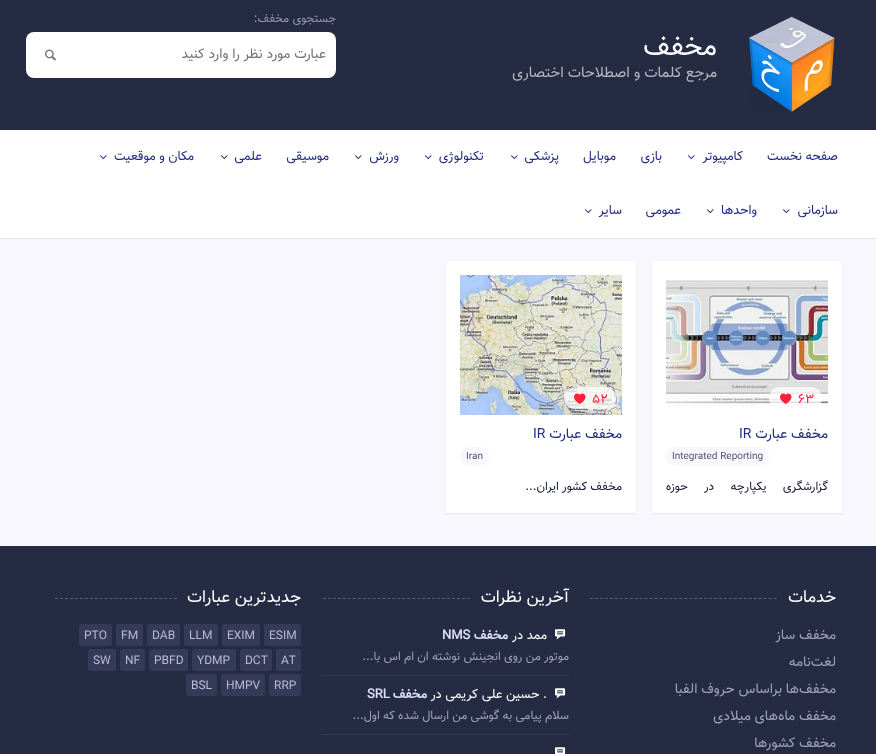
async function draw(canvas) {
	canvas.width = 876;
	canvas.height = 754;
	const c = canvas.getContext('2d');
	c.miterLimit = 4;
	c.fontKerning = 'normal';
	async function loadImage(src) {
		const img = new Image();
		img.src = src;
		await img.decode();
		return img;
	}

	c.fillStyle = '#f7f7fd';
	c.fillRect(0, 0, 876, 754);
	c.fillStyle = '#252b42';
	c.fillRect(0, 0, 876, 130);
	c.drawImage(await loadImage('img1.png'), 749, 16, 86, 96);
	c.direction = 'rtl';
	c.font = '28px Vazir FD';
	c.fillStyle = '#fff';
	c.fillText('مخفف', 717, 55);
	c.font = '15px Vazir FD';
	c.fillStyle = '#b7b7c2';
	c.fillText('مرجع کلمات و اصطلاحات اختصاری', 717, 77);
	c.fillStyle = '#fff';
	c.beginPath();
	c.roundRect(26, 32, 310, 46, 8);
	c.fill();
	c.font = '12px Vazir FD';
	c.fillStyle = '#9397ad';
	c.fillText('جستجوی مخفف:', 336, 22);
	c.font = '14px Vazir FD';
	c.fillStyle = '#757575';
	c.fillText('عبارت مورد نظر را وارد کنید', 326, 58);
	c.drawImage(await loadImage('img2.png'), 45, 49, 11, 12);
	c.fillStyle = '#00000012';
	c.filter = 'blur(0.5px)';
	c.beginPath();
	c.rect(0, 131, 876, 108);
	c.fill();
	c.filter = 'none';
	c.fillStyle = '#fff';
	c.fillRect(0, 130, 876, 108);
	c.font = '13px Vazir FD';
	c.fillStyle = '#222d7f';
	c.fillText('صفحه نخست', 838, 160);
	c.fillText('کامپیوتر', 743, 160);
	c.drawImage(await loadImage('img3.png'), 688, 155, 7, 5);
	for (const [text, x, y] of [
		['بازی', 662, 160],
		['موبایل', 616, 160],
		['پزشکی', 559, 160],
	]) {
		c.fillText(text, x, y);
	}
	c.drawImage(await loadImage('img3.png'), 511, 155, 7, 5);
	c.fillText('تکنولوژی', 484, 160);
	c.drawImage(await loadImage('img3.png'), 425, 155, 7, 5);
	c.fillText('ورزش', 399, 160);
	c.drawImage(await loadImage('img3.png'), 355, 155, 7, 5);
	c.fillText('موسیقی', 329, 160);
	c.fillText('علمی', 262, 160);
	c.drawImage(await loadImage('img3.png'), 221, 155, 7, 5);
	c.fillText('مکان و موقعیت', 194, 160);
	c.drawImage(await loadImage('img3.png'), 100, 155, 7, 5);
	c.fillText('سازمانی', 838, 214);
	c.drawImage(await loadImage('img3.png'), 783, 209, 7, 5);
	c.fillText('واحدها', 757, 214);
	c.drawImage(await loadImage('img3.png'), 707, 209, 7, 5);
	c.fillText('عمومی', 681, 214);
	c.fillText('سایر', 622, 214);
	c.drawImage(await loadImage('img3.png'), 585, 209, 7, 5);
	c.fillStyle = '#00000012';
	c.filter = 'blur(1px)';
	c.beginPath();
	c.rect(652, 262, 190, 252);
	c.fill();
	c.filter = 'none';
	c.fillStyle = '#fff';
	c.fillRect(652, 261, 190, 252);
	c.drawImage(await loadImage('img4.png'), 666, 280, 162, 127);
	c.fillStyle = '#ffffffb8';
	c.beginPath();
	c.roundRect(769, 387, 53, 22, 11);
	c.fill();
	c.direction = 'ltr';
	c.fillStyle = '#fe2139';
	c.fillText('63', 798, 403);
	c.drawImage(await loadImage('img5.png'), 780, 393, 12, 11);
	c.direction = 'rtl';
	c.font = '14px Vazir FD';
	c.fillStyle = '#222d7f';
	c.fillText('مخفف عبارت', 828, 438);
	c.direction = 'ltr';
	c.fillText('IR', 739, 438);
	c.fillStyle = '#f7f7fd';
	c.beginPath();
	c.roundRect(666, 447, 103, 19, 9.5);
	c.fill();
	c.font = '10px Vazir FD';
	c.fillStyle = '#515577';
	c.fillText('Integrated Reporting', 672, 459);
	c.wordSpacing = '13px';
	c.direction = 'rtl';
	c.font = '12px Vazir FD';
	c.fillStyle = '#151931';
	c.fillText('گزارشگری یکپارچه در حوزه', 828, 490);
	c.fillStyle = '#00000012';
	c.filter = 'blur(1px)';
	c.beginPath();
	c.rect(446, 262, 190, 252);
	c.fill();
	c.filter = 'none';
	c.fillStyle = '#fff';
	c.fillRect(446, 261, 190, 252);
	c.drawImage(await loadImage('img6.png'), 460, 275, 162, 140);
	c.fillStyle = '#ffffffb8';
	c.beginPath();
	c.roundRect(564, 387, 52, 22, 11);
	c.fill();
	c.wordSpacing = '0px';
	c.direction = 'ltr';
	c.font = '13px Vazir FD';
	c.fillStyle = '#fe2139';
	c.fillText('52', 592, 403);
	c.drawImage(await loadImage('img7.png'), 574, 393, 12, 11);
	c.direction = 'rtl';
	c.font = '14px Vazir FD';
	c.fillStyle = '#222d7f';
	c.fillText('مخفف عبارت', 622, 438);
	c.direction = 'ltr';
	c.fillText('IR', 533, 438);
	c.fillStyle = '#f7f7fd';
	c.beginPath();
	c.roundRect(460, 447, 29, 19, 9.5);
	c.fill();
	c.font = '10px Vazir FD';
	c.fillStyle = '#515577';
	c.fillText('Iran', 466, 459);
	c.direction = 'rtl';
	c.font = '12px Vazir FD';
	c.fillStyle = '#151931';
	c.fillText('مخفف کشور ایران...', 622, 490);
	c.fillStyle = '#252b42';
	c.fillRect(0, 546, 876, 208);
	c.beginPath();
	c.moveTo(590, 598.5);
	c.lineTo(836, 598.5);
	c.strokeStyle = '#585d7d';
	c.setLineDash([3, 1.96]);
	c.stroke();
	c.fillRect(778, 598, 58, 1);
	c.font = '17px Vazir FD';
	c.fillStyle = '#fff';
	c.fillText('خدمات', 836, 602);
	c.font = '14px Vazir FD';
	c.fillStyle = '#9da2b9';
	for (const [text, x, y] of [
		['مخفف ساز', 836, 639],
		['لغت‌نامه', 836, 666],
		['مخفف‌ها براساس حروف الفبا', 836, 693],
		['مخفف ماه‌های میلادی', 836, 720],
		['مخفف کشورها', 836, 747],
	]) {
		c.fillText(text, x, y);
	}
	c.beginPath();
	c.moveTo(323, 598.5);
	c.lineTo(569, 598.5);
	c.stroke();
	c.fillStyle = '#252b42';
	c.fillRect(471, 598, 98, 1);
	c.font = '17px Vazir FD';
	c.fillStyle = '#fff';
	c.fillText('آخرین نظرات', 569, 602);
	c.fillStyle = '#313854';
	c.fillRect(321, 675, 248, 1);
	c.drawImage(await loadImage('img8.png'), 555, 629, 11, 11);
	c.font = '13px Vazir FD';
	c.fillStyle = '#fff';
	c.fillText('ممد در', 547, 639);
	c.font = 'bold 13px Vazir FD';
	c.fillStyle = '#dde1ff';
	c.fillText('مخفف', 508, 639);
	c.direction = 'ltr';
	c.fillText('NMS', 442, 639);
	c.direction = 'rtl';
	c.font = '12px Vazir FD';
	c.fillStyle = '#9da2b9';
	c.fillText('موتور من روی انجینش نوشته ان ام اس با...', 569, 660);
	c.fillStyle = '#313854';
	c.fillRect(321, 734, 248, 1);
	c.drawImage(await loadImage('img8.png'), 555, 688, 11, 11);
	c.font = '13px Vazir FD';
	c.fillStyle = '#fff';
	c.fillText('. حسین علی کریمی در', 547, 698);
	c.font = 'bold 13px Vazir FD';
	c.fillStyle = '#dde1ff';
	c.fillText('مخفف', 427, 698);
	c.direction = 'ltr';
	c.fillText('SRL', 367, 698);
	c.direction = 'rtl';
	c.font = '12px Vazir FD';
	c.fillStyle = '#9da2b9';
	c.fillText('سلام پیامی به گوشی من ارسال شده که اول...', 569, 719);
	c.drawImage(await loadImage('img9.png'), 555, 747, 11, 7);
	c.beginPath();
	c.moveTo(55, 598.5);
	c.lineTo(301, 598.5);
	c.stroke();
	c.fillStyle = '#252b42';
	c.fillRect(179, 598, 122, 1);
	c.font = '17px Vazir FD';
	c.fillStyle = '#fff';
	c.fillText('جدیدترین عبارات', 301, 602);
	c.fillStyle = '#353a58';
	c.beginPath();
	c.roundRect(264, 624, 37, 22, 2);
	c.fill();
	c.direction = 'ltr';
	c.font = '12px Vazir FD';
	c.fillStyle = '#b8bbd2';
	c.fillText('ESIM', 269, 639);
	c.fillStyle = '#353a58';
	c.beginPath();
	c.roundRect(222, 624, 38, 22, 2);
	c.fill();
	c.fillStyle = '#b8bbd2';
	c.fillText('EXIM', 227, 639);
	c.fillStyle = '#353a58';
	c.beginPath();
	c.roundRect(184, 624, 34, 22, 2);
	c.fill();
	c.fillStyle = '#b8bbd2';
	c.fillText('LLM', 189, 639);
	c.fillStyle = '#353a58';
	c.beginPath();
	c.roundRect(147, 624, 33, 22, 2);
	c.fill();
	c.fillStyle = '#b8bbd2';
	c.fillText('DAB', 152, 639);
	c.fillStyle = '#353a58';
	c.beginPath();
	c.roundRect(116, 624, 27, 22, 2);
	c.fill();
	c.fillStyle = '#b8bbd2';
	c.fillText('FM', 121, 639);
	c.fillStyle = '#353a58';
	c.beginPath();
	c.roundRect(79, 624, 33, 22, 2);
	c.fill();
	c.fillStyle = '#b8bbd2';
	c.fillText('PTO', 84, 639);
	c.fillStyle = '#353a58';
	c.beginPath();
	c.roundRect(276, 649, 25, 22, 2);
	c.fill();
	c.fillStyle = '#b8bbd2';
	c.fillText('AT', 281, 664);
	c.fillStyle = '#353a58';
	c.beginPath();
	c.roundRect(240, 649, 32, 22, 2);
	c.fill();
	c.fillStyle = '#b8bbd2';
	c.fillText('DCT', 245, 664);
	c.fillStyle = '#353a58';
	c.beginPath();
	c.roundRect(192, 649, 44, 22, 2);
	c.fill();
	c.fillStyle = '#b8bbd2';
	c.fillText('YDMP', 197, 664);
	c.fillStyle = '#353a58';
	c.beginPath();
	c.roundRect(149, 649, 39, 22, 2);
	c.fill();
	c.fillStyle = '#b8bbd2';
	c.fillText('PBFD', 154, 664);
	c.fillStyle = '#353a58';
	c.beginPath();
	c.roundRect(120, 649, 25, 22, 2);
	c.fill();
	c.fillStyle = '#b8bbd2';
	c.fillText('NF', 125, 664);
	c.fillStyle = '#353a58';
	c.beginPath();
	c.roundRect(88, 649, 28, 22, 2);
	c.fill();
	c.fillStyle = '#b8bbd2';
	c.fillText('SW', 93, 664);
	c.fillStyle = '#353a58';
	c.beginPath();
	c.roundRect(269, 674, 32, 22, 2);
	c.fill();
	c.fillStyle = '#b8bbd2';
	c.fillText('RRP', 274, 689);
	c.fillStyle = '#353a58';
	c.beginPath();
	c.roundRect(221, 674, 44, 22, 2);
	c.fill();
	c.fillStyle = '#b8bbd2';
	c.fillText('HMPV', 226, 689);
	c.fillStyle = '#353a58';
	c.beginPath();
	c.roundRect(186, 674, 31, 22, 2);
	c.fill();
	c.fillStyle = '#b8bbd2';
	c.fillText('BSL', 191, 689);
}

draw(document.querySelector('canvas'));
